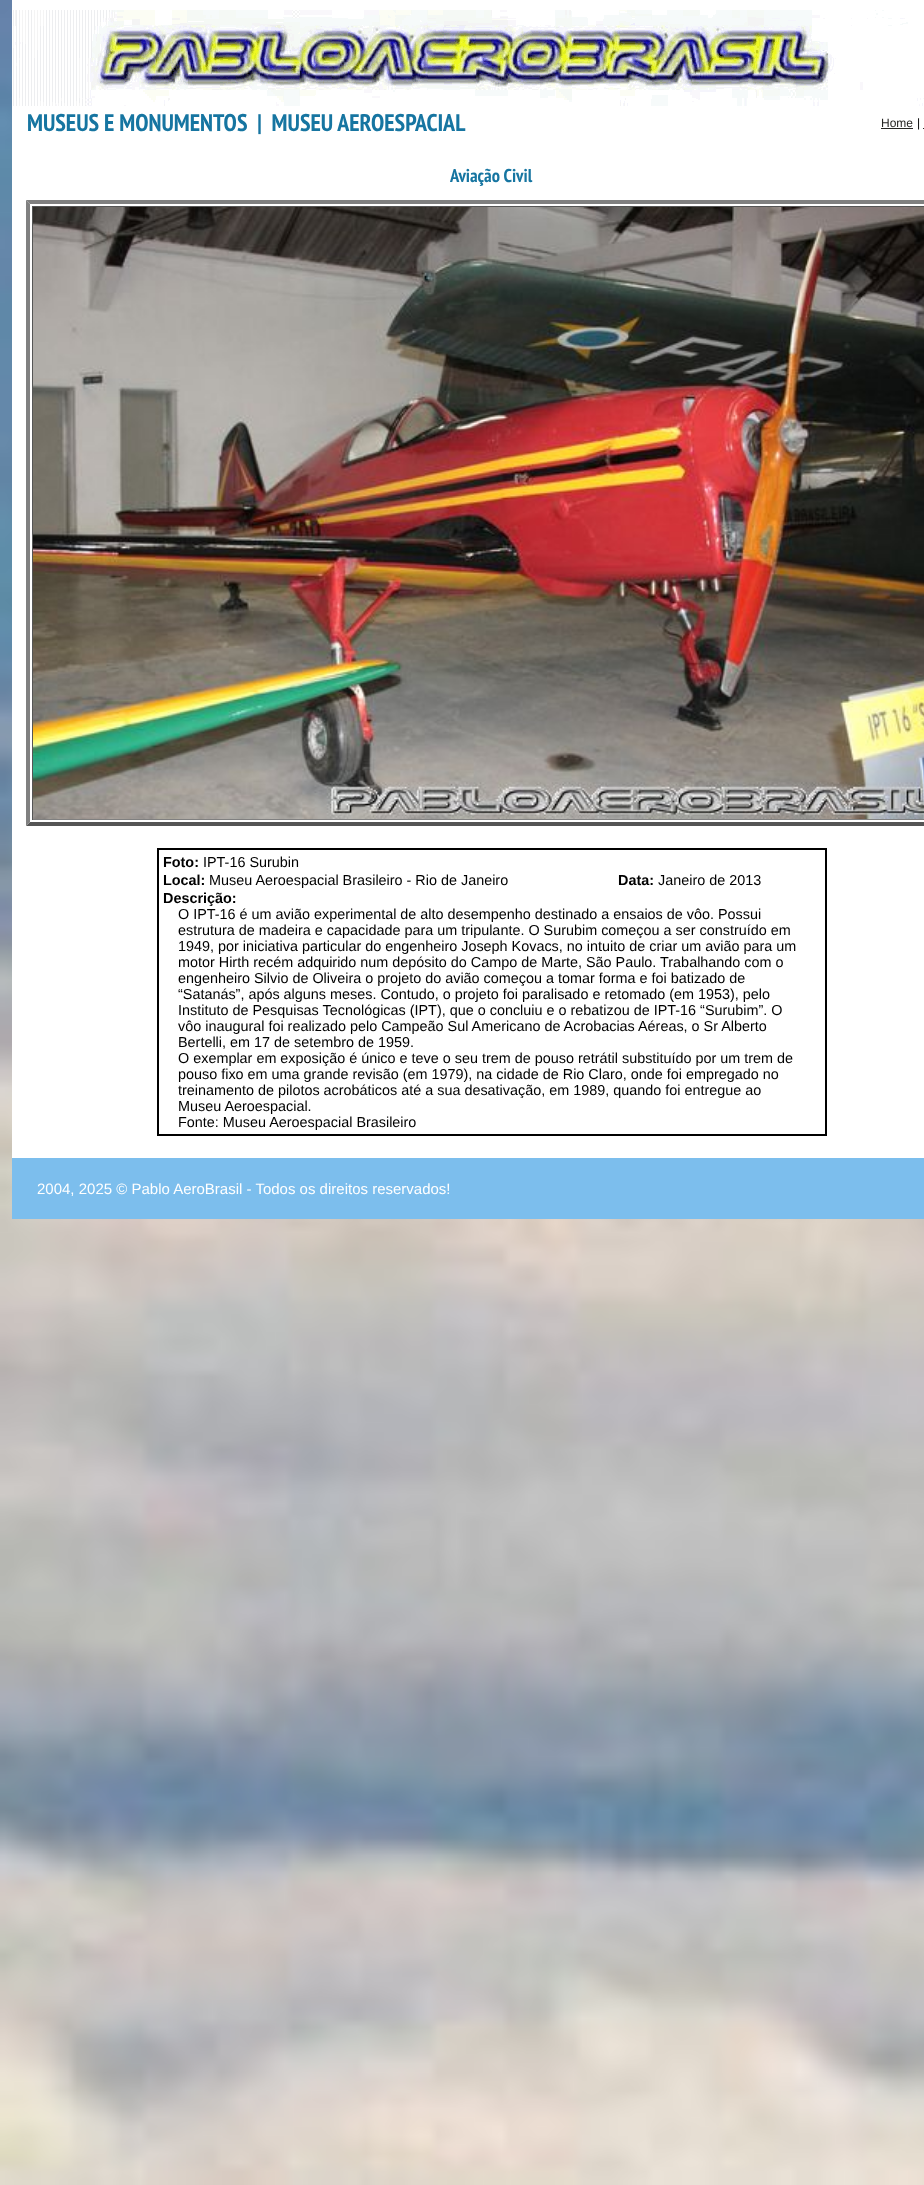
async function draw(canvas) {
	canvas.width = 924;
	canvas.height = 2185;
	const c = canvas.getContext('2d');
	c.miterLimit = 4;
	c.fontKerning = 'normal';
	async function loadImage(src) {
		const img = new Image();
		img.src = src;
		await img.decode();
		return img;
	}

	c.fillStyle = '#fff';
	c.fillRect(0, 0, 924, 2185);
	c.drawImage(await loadImage('img1.png'), 0, 0, 924, 2185);
	c.fillRect(12, 0, 912, 1158);
	c.drawImage(await loadImage('img2.png'), 13, 10, 911, 96);
	c.font = 'bold 24px PT Sans Narrow';
	c.fillStyle = '#1675a1';
	c.fillText('MUSEUS E MONUMENTOS  |  MUSEU AEROESPACIAL', 27, 131);
	c.font = '12px Liberation Sans';
	c.fillStyle = '#272624';
	c.fillText('Home', 881, 127);
	c.fillRect(881, 128, 32, 1);
	c.fillStyle = '#000';
	c.fillText('|', 917, 127);
	c.fillStyle = '#272624';
	c.fillRect(923, 128, 1, 1);
	c.font = 'bold 18.5px PT Sans Narrow';
	c.fillStyle = '#1675a1';
	c.fillText('Aviação Civil', 450, 182);
	c.fillStyle = '#808080';
	c.beginPath();
	c.moveTo(26, 200);
	c.lineTo(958, 200);
	c.lineTo(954, 204);
	c.lineTo(30, 204);
	c.closePath();
	c.fill();
	c.fillStyle = '#555';
	c.beginPath();
	c.moveTo(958, 826);
	c.lineTo(26, 826);
	c.lineTo(30, 822);
	c.lineTo(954, 822);
	c.closePath();
	c.fill();
	c.fillStyle = '#808080';
	c.beginPath();
	c.moveTo(26, 826);
	c.lineTo(26, 200);
	c.lineTo(30, 204);
	c.lineTo(30, 822);
	c.closePath();
	c.fill();
	for (const [x, y, w, h, color] of [
		[32, 206, 892, 1, '#555'],
		[32, 819, 892, 1, '#808080'],
		[32, 206, 1, 614, '#555'],
	]) {
		c.fillStyle = color;
		c.fillRect(x, y, w, h);
	}
	c.drawImage(await loadImage('img3.png'), 33, 207, 891, 612);
	c.strokeStyle = '#000';
	c.lineWidth = 2;
	c.strokeRect(158, 849, 668, 286);
	c.font = 'bold 14.4px Liberation Sans';
	c.fillStyle = '#000';
	c.fillText('Foto:', 163, 867);
	c.font = '14.4px Liberation Sans';
	c.fillText('IPT-16 Surubin', 203, 867);
	c.font = 'bold 14.4px Liberation Sans';
	c.fillText('Local:', 163, 885);
	c.font = '14.4px Liberation Sans';
	c.fillText('Museu Aeroespacial Brasileiro - Rio de Janeiro', 209, 885);
	c.font = 'bold 14.4px Liberation Sans';
	c.fillText('Data:', 618, 885);
	c.font = '14.4px Liberation Sans';
	c.fillText('Janeiro de 2013', 658, 885);
	c.font = 'bold 14.4px Liberation Sans';
	c.fillText('Descrição:', 163, 903);
	c.font = '14.4px Liberation Sans';
	for (const [text, x, y] of [
		['O IPT-16 é um avião experimental de alto desempenho destinado a ensaios de vôo. Possui', 178, 919],
		['estrutura de madeira e capacidade para um tripulante. O Surubim começou a ser construído em', 178, 935],
		['1949, por iniciativa particular do engenheiro Joseph Kovacs, no intuito de criar um avião para um', 178, 951],
		['motor Hirth recém adquirido num depósito do Campo de Marte, São Paulo. Trabalhando com o', 178, 967],
		['engenheiro Silvio de Oliveira o projeto do avião começou a tomar forma e foi batizado de', 178, 983],
		['“Satanás”, após alguns meses. Contudo, o projeto foi paralisado e retomado (em 1953), pelo', 178, 999],
		['Instituto de Pesquisas Tecnológicas (IPT), que o concluiu e o rebatizou de IPT-16 “Surubim”. O', 178, 1015],
		['vôo inaugural foi realizado pelo Campeão Sul Americano de Acrobacias Aéreas, o Sr Alberto', 178, 1031],
		['Bertelli, em 17 de setembro de 1959.', 178, 1047],
		['O exemplar em exposição é único e teve o seu trem de pouso retrátil substituído por um trem de', 178, 1063],
		['pouso fixo em uma grande revisão (em 1979), na cidade de Rio Claro, onde foi empregado no', 178, 1079],
		['treinamento de pilotos acrobáticos até a sua desativação, em 1989, quando foi entregue ao', 178, 1095],
		['Museu Aeroespacial.', 178, 1111],
		['Fonte: Museu Aeroespacial Brasileiro', 178, 1127],
	]) {
		c.fillText(text, x, y);
	}
	c.fillStyle = '#7cbeed';
	c.fillRect(12, 1158, 912, 61);
	c.font = '15px Liberation Sans';
	c.fillStyle = '#fff';
	c.fillText('2004, 2025 © Pablo AeroBrasil - Todos os direitos reservados!', 37, 1194);
}

draw(document.querySelector('canvas'));
